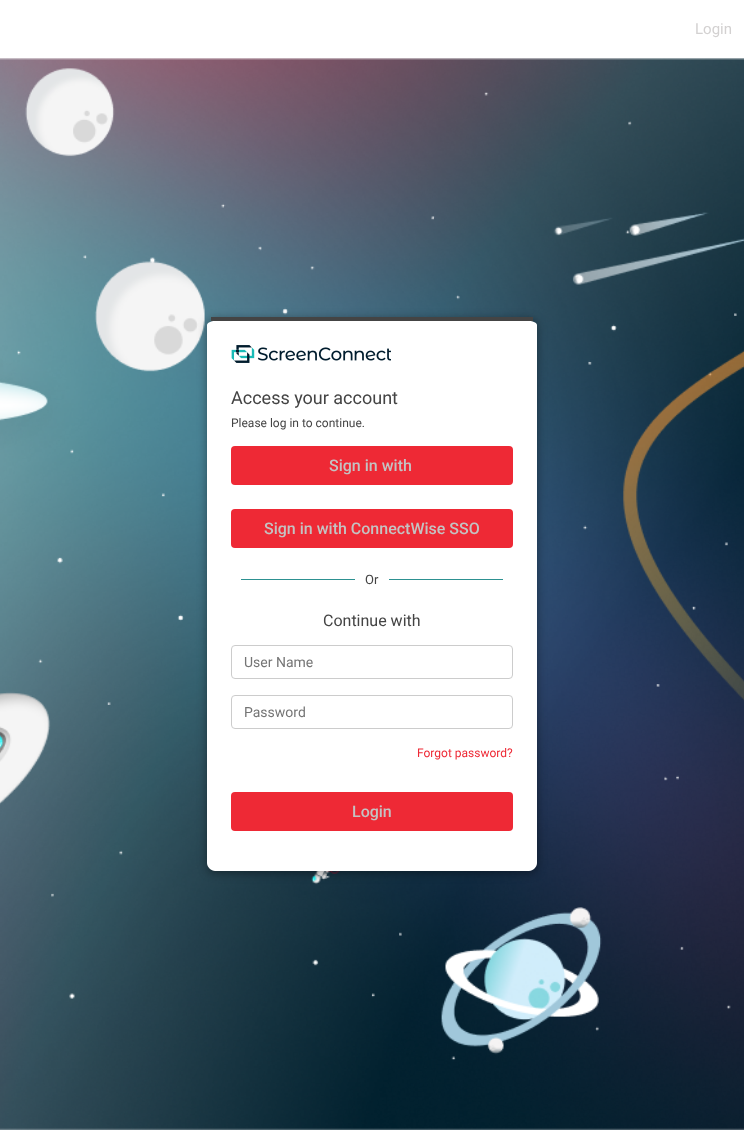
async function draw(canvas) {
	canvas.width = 744;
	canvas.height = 1130;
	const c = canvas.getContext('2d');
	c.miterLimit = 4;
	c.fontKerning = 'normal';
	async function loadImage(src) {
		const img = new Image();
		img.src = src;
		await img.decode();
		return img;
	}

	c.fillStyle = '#fff';
	c.fillRect(0, 0, 744, 1130);
	c.font = '15px Roboto';
	c.fillStyle = '#d3d1d1';
	c.fillText('Login', 695, 34);
	c.drawImage(await loadImage('img1.png'), 0, 58, 744, 1072);
	c.fillStyle = '#00000066';
	c.filter = 'blur(5px)';
	c.beginPath();
	c.roundRect(207, 319, 330, 554, 8);
	c.fill();
	c.filter = 'none';
	c.fillStyle = '#fff';
	c.beginPath();
	c.moveTo(215, 321);
	c.lineTo(529, 321);
	c.bezierCurveTo(533, 321, 537, 323, 537, 325);
	c.lineTo(537, 863);
	c.bezierCurveTo(537, 867, 533, 871, 529, 871);
	c.lineTo(215, 871);
	c.bezierCurveTo(211, 871, 207, 867, 207, 863);
	c.lineTo(207, 325);
	c.bezierCurveTo(207, 323, 211, 321, 215, 321);
	c.closePath();
	c.fill();
	c.fillStyle = '#444';
	c.fillRect(211, 317, 322, 4);
	c.drawImage(await loadImage('img2.png'), 231, 345, 160, 18);
	c.font = '18px Roboto';
	c.fillText('Access your account', 231, 404);
	c.font = '12px Roboto';
	c.fillText('Please log in to continue.', 231, 427);
	c.fillStyle = '#ee2935';
	c.beginPath();
	c.roundRect(231, 446, 282, 39, 4);
	c.fill();
	c.font = '500 16px Roboto';
	c.fillStyle = '#c4c2c2';
	c.fillText('Sign in with', 329, 471);
	c.fillStyle = '#ee2935';
	c.beginPath();
	c.roundRect(231, 509, 282, 39, 4);
	c.fill();
	c.fillStyle = '#c4c2c2';
	c.fillText('Sign in with ConnectWise SSO', 264, 534);
	c.fillStyle = '#2d9191';
	c.fillRect(241, 579, 114, 1);
	c.font = '13px Roboto';
	c.fillStyle = '#444';
	c.fillText('Or', 365, 584);
	c.fillStyle = '#2d9191';
	c.fillRect(389, 579, 114, 1);
	c.font = '16px Roboto';
	c.fillStyle = '#444';
	c.fillText('Continue with', 323, 626);
	c.beginPath();
	c.roundRect(231.5, 645.5, 281, 33, 3.5);
	c.strokeStyle = '#ccc';
	c.stroke();
	c.font = '14px Roboto';
	c.fillStyle = '#757575';
	c.fillText('User Name', 244, 667);
	c.beginPath();
	c.roundRect(231.5, 695.5, 281, 33, 3.5);
	c.stroke();
	c.fillText('Password', 244, 717);
	c.font = '12px Roboto';
	c.fillStyle = '#ee2935';
	c.fillText('Forgot password?', 417, 757);
	c.beginPath();
	c.roundRect(231, 792, 282, 39, 4);
	c.fill();
	c.font = '500 16px Roboto';
	c.fillStyle = '#c4c2c2';
	c.fillText('Login', 352, 817);
}

draw(document.querySelector('canvas'));
